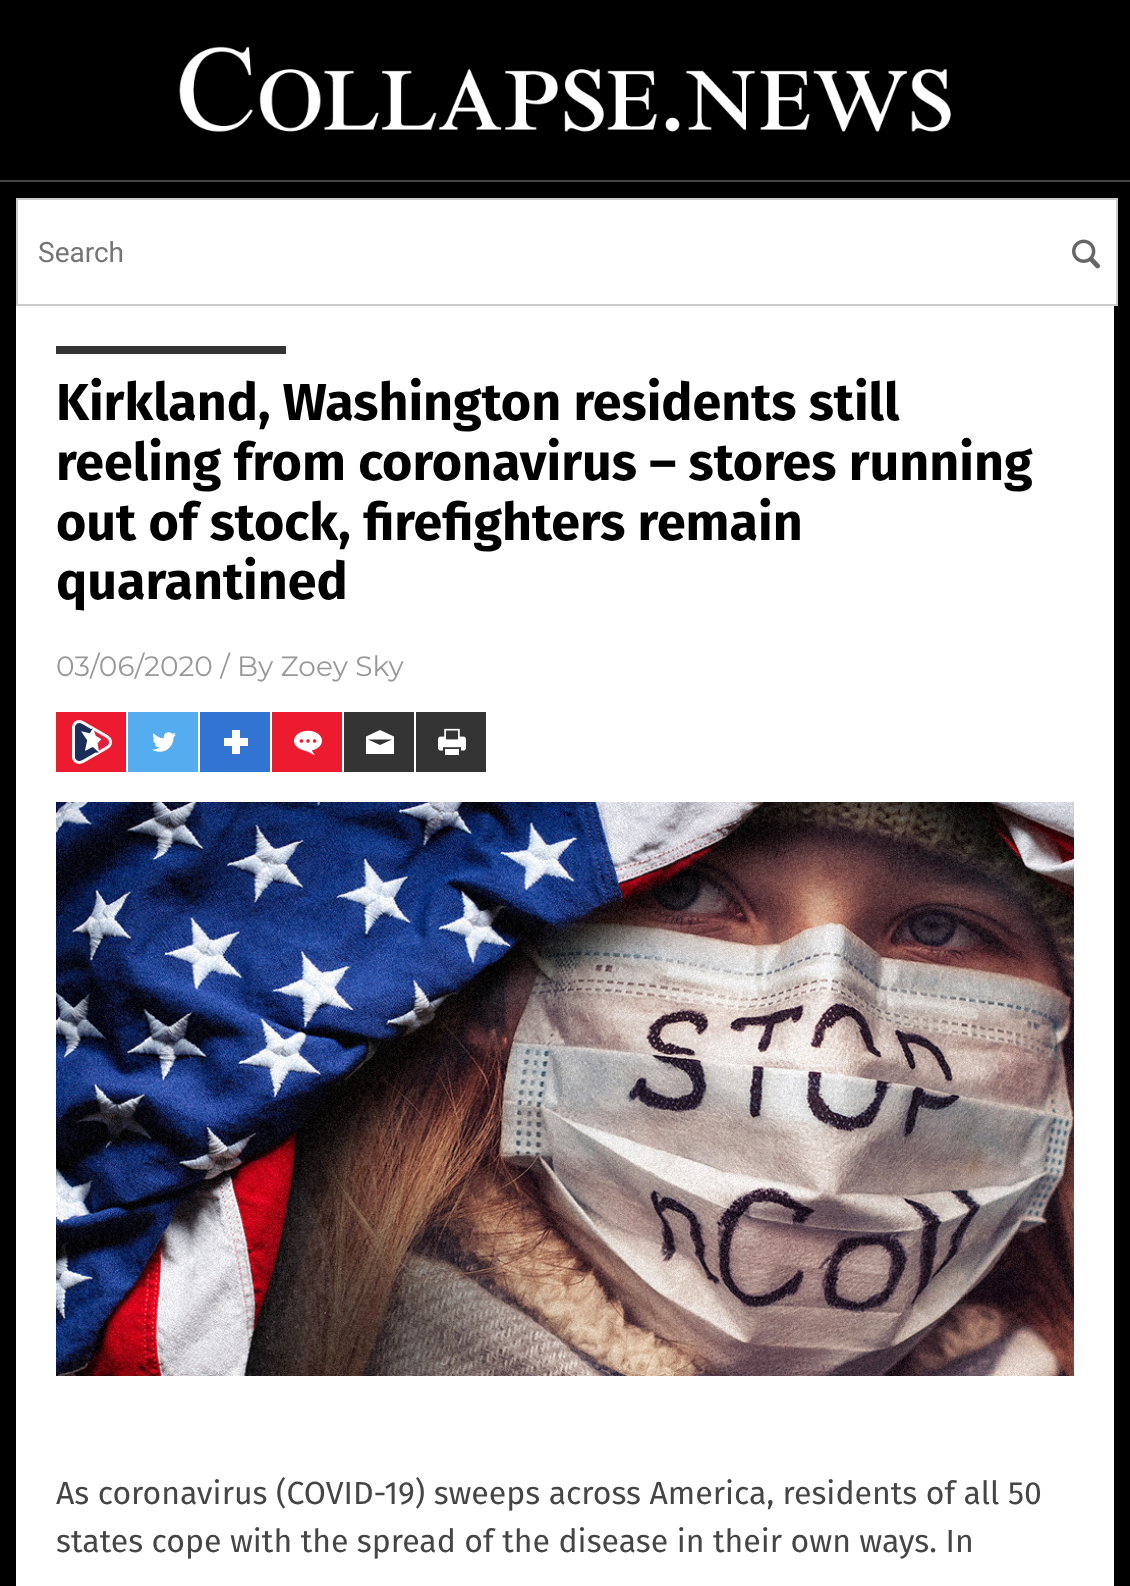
async function draw(canvas) {
	canvas.width = 1130;
	canvas.height = 1586;
	const c = canvas.getContext('2d');
	c.miterLimit = 4;
	c.fontKerning = 'normal';
	async function loadImage(src) {
		const img = new Image();
		img.src = src;
		await img.decode();
		return img;
	}

	c.fillStyle = '#000';
	c.fillRect(0, 0, 1130, 1586);
	c.drawImage(await loadImage('img1.png'), 179, 46, 772, 86);
	c.fillStyle = '#454545';
	c.fillRect(0, 180, 1130, 2);
	c.fillStyle = '#fff';
	c.beginPath();
	c.rect(17, 199, 1100, 106);
	c.fill();
	c.strokeStyle = '#ccc';
	c.lineWidth = 2;
	c.stroke();
	c.font = '28px Roboto';
	c.fillStyle = '#757575';
	c.fillText('Search', 38, 262);
	c.drawImage(await loadImage('img2.png'), 1072, 239, 28, 30);
	c.fillStyle = '#fff';
	c.fillRect(16, 306, 1098, 1280);
	c.fillStyle = '#333';
	c.fillRect(56, 346, 230, 8);
	c.font = 'bold 52px Fira Sans';
	c.fillStyle = '#000';
	for (const [text, x, y] of [
		['Kirkland, Washington residents still', 56, 420],
		['reeling from coronavirus – stores running', 56, 480],
		['out of stock, firefighters remain', 56, 540],
		['quarantined', 56, 599],
	]) {
		c.fillText(text, x, y);
	}
	c.font = '28px Montserrat';
	c.fillStyle = '#999';
	c.fillText('03/06/2020 / By Zoey Sky', 56, 676);
	c.fillStyle = '#ed1b2f';
	c.fillRect(56, 712, 70, 60);
	c.drawImage(await loadImage('img3.png'), 72, 720, 40, 44);
	c.fillStyle = '#55acef';
	c.fillRect(128, 712, 70, 60);
	c.drawImage(await loadImage('img4.png'), 152, 732, 24, 20);
	c.fillStyle = '#3274d1';
	c.fillRect(200, 712, 70, 60);
	c.drawImage(await loadImage('img5.png'), 224, 730, 24, 24);
	c.fillStyle = '#ed1b2f';
	c.fillRect(272, 712, 70, 60);
	c.drawImage(await loadImage('img6.png'), 294, 730, 28, 26);
	c.fillStyle = '#343434';
	c.fillRect(344, 712, 70, 60);
	c.fillStyle = '#fff';
	c.beginPath();
	c.moveTo(380, 730);
	c.lineTo(366, 736.5);
	c.lineTo(366, 754);
	c.lineTo(394, 754);
	c.lineTo(394, 736.5);
	c.closePath();
	c.moveTo(380, 745);
	c.lineTo(368, 739.5);
	c.lineTo(392, 739.5);
	c.closePath();
	c.fill();
	c.fillStyle = '#343434';
	c.fillRect(416, 712, 70, 60);
	c.drawImage(await loadImage('img7.png'), 438, 728, 28, 27);
	c.drawImage(await loadImage('img8.png'), 56, 802, 1018, 574);
	c.font = '32px Fira Sans';
	c.fillStyle = '#454545';
	c.fillText('As coronavirus (COVID-19) sweeps across America, residents of all 50', 56, 1504);
	c.fillText('states cope with the spread of the disease in their own ways. In', 56, 1552);
}

draw(document.querySelector('canvas'));
